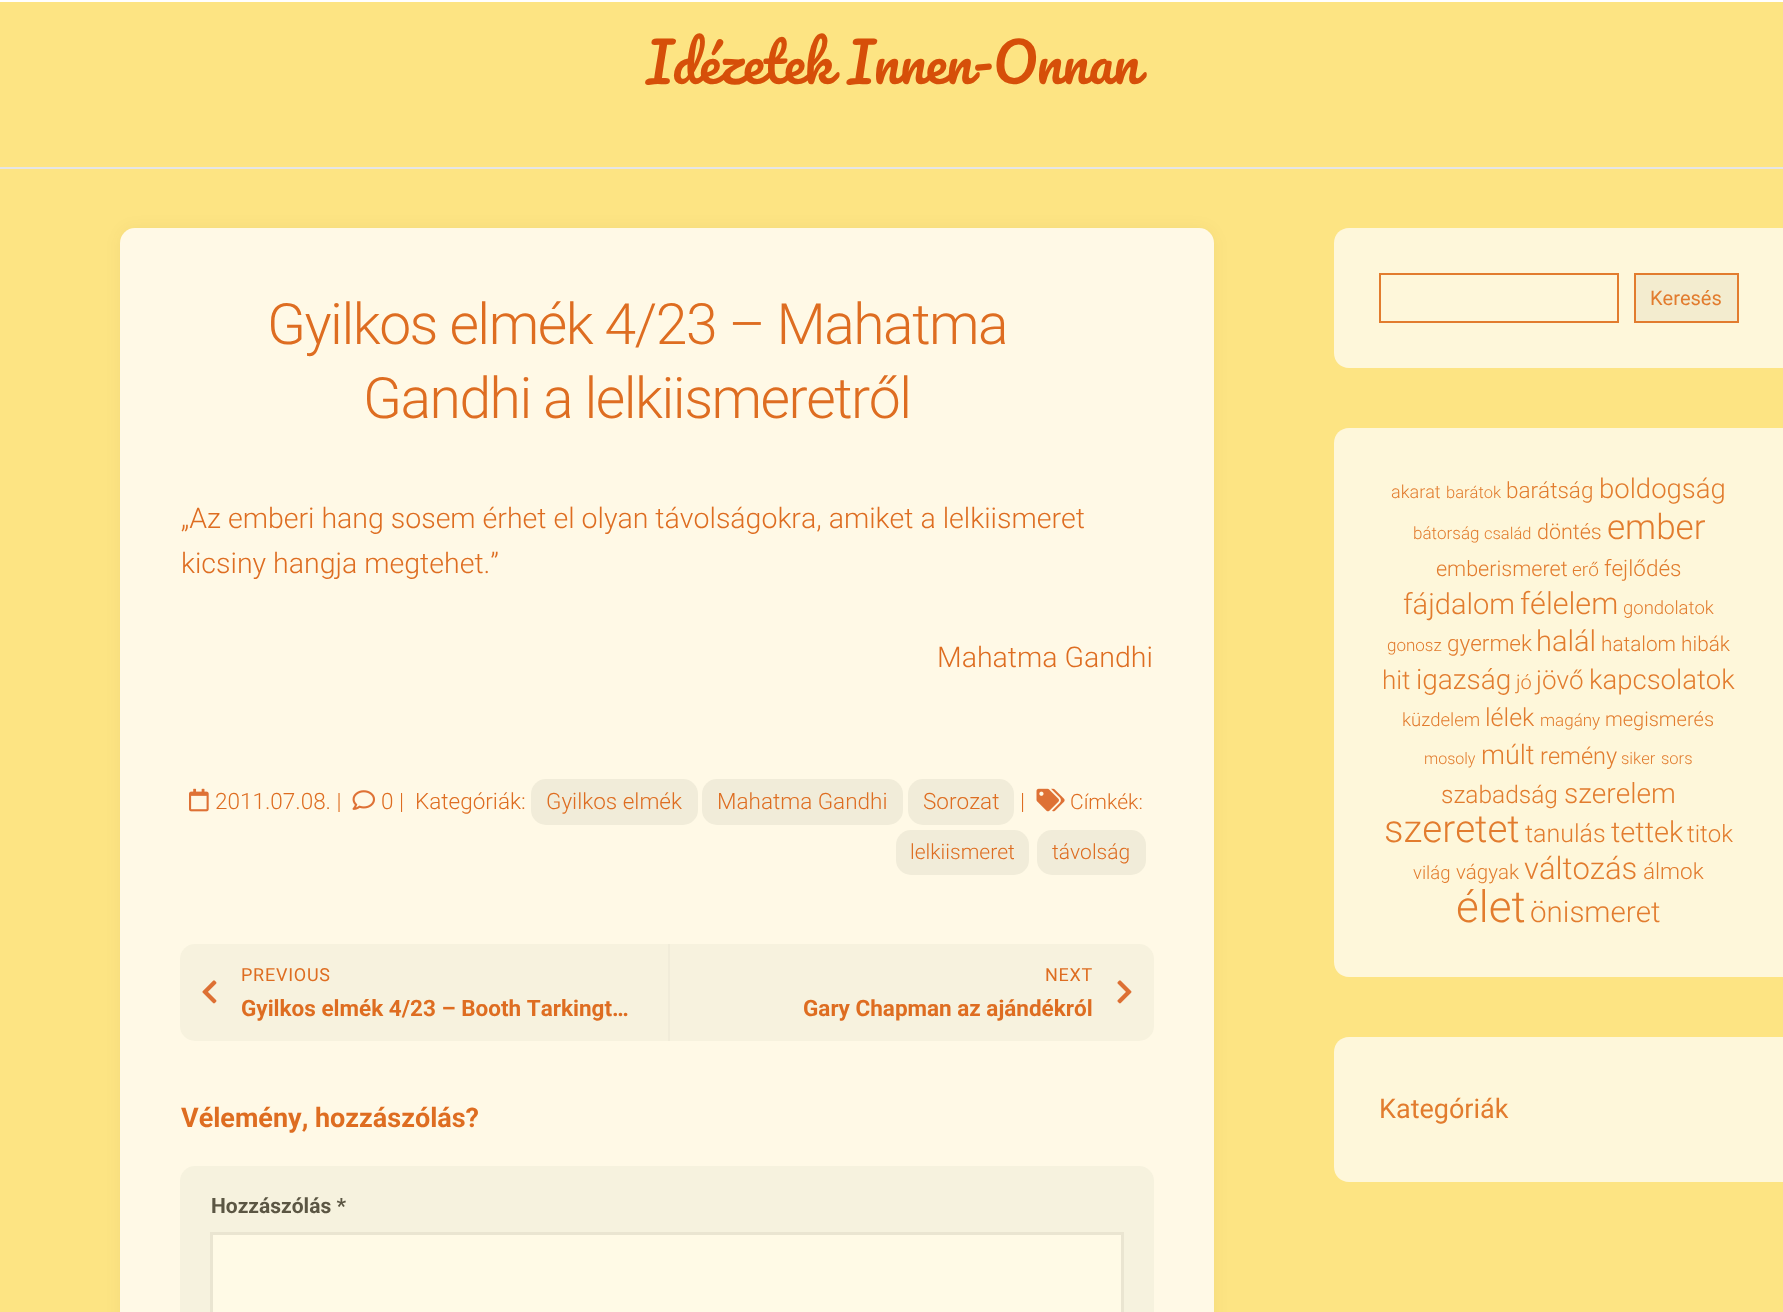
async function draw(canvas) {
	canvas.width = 1783;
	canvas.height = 1312;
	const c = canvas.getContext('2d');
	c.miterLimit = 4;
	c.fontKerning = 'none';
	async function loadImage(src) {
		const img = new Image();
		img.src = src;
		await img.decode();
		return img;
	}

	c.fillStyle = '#fde483';
	c.fillRect(0, 0, 1783, 1312);
	c.fillStyle = '#fff';
	c.fillRect(0, 0, 1783, 2);
	c.fillStyle = '#e5e5e5';
	c.fillRect(0, 167, 1783, 2);
	c.letterSpacing = '-0.75px';
	c.wordSpacing = '2px';
	c.font = '54px Pacifico';
	c.fillStyle = '#d64f09';
	c.fillText('Idézetek Innen-Onnan', 646, 84);
	c.fillStyle = '#332e1a0d';
	c.filter = 'blur(7.5px)';
	c.beginPath();
	c.roundRect(120, 228, 1094, 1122, 15);
	c.fill();
	c.filter = 'none';
	c.fillStyle = '#fff9e6';
	c.beginPath();
	c.roundRect(120, 228, 1094, 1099, 15);
	c.fill();
	c.letterSpacing = '-1.5px';
	c.wordSpacing = '0px';
	c.font = '300 57px Roboto';
	c.fillStyle = '#de6d21';
	c.fillText('Gyilkos elmék 4/23 – Mahatma', 267, 344);
	c.fillText('Gandhi a lelkiismeretről', 363, 418);
	c.letterSpacing = '0px';
	c.font = '300 28.5px Roboto';
	for (const [text, x, y] of [
		['„Az emberi hang sosem érhet el olyan távolságokra, amiket a lelkiismeret', 181, 528],
		['kicsiny hangja megtehet.”', 181, 573],
		['Mahatma Gandhi', 937, 667],
	]) {
		c.fillText(text, x, y);
	}
	c.drawImage(await loadImage('img1.png'), 189, 788, 20, 24);
	c.font = '300 22.5px Roboto';
	c.fillText('2011.07.08. |', 215, 809);
	c.drawImage(await loadImage('img2.png'), 352, 790, 23, 20);
	c.fillText('0 |', 381, 809);
	c.fillText('Kategóriák:', 415, 809);
	c.fillStyle = '#f1ecd9';
	c.beginPath();
	c.roundRect(531, 779, 167, 46, 15);
	c.fill();
	c.fillStyle = '#de6d21';
	c.fillText('Gyilkos elmék', 546, 809);
	c.fillStyle = '#f1ecd9';
	c.beginPath();
	c.roundRect(702, 779, 201, 46, 15);
	c.fill();
	c.fillStyle = '#de6d21';
	c.fillText('Mahatma Gandhi', 717, 809);
	c.fillStyle = '#f1ecd9';
	c.beginPath();
	c.roundRect(908, 779, 106, 46, 15);
	c.fill();
	c.fillStyle = '#de6d21';
	c.fillText('Sorozat', 923, 809);
	c.drawImage(await loadImage('img3.png'), 1036, 788, 29, 24);
	c.font = '300 21px Roboto';
	c.fillText('Címkék:', 1070, 809);
	c.fillStyle = '#f1ecd9';
	c.beginPath();
	c.roundRect(896, 830, 133, 45, 15);
	c.fill();
	c.fillStyle = '#de6d21';
	c.fillText('lelkiismeret', 910, 859);
	c.fillStyle = '#f1ecd9';
	c.beginPath();
	c.roundRect(1037, 830, 109, 45, 15);
	c.fill();
	c.fillStyle = '#de6d21';
	c.fillText('távolság', 1052, 859);
	c.font = '300 22.5px Roboto';
	c.fillText('|', 1020, 809);
	c.fillStyle = '#f7f2de';
	c.beginPath();
	c.roundRect(180, 944, 974, 97, 15);
	c.fill();
	c.letterSpacing = '0.75px';
	c.font = '18px Roboto';
	c.fillStyle = '#de6d21';
	c.fillText('PREVIOUS', 241, 981);
	c.drawImage(await loadImage('img4.png'), 202, 980, 15, 24);
	c.letterSpacing = '0px';
	c.font = 'bold 22.5px Roboto';
	c.fillText('Gyilkos elmék 4/23 – Booth Tarkingt…', 241, 1016);
	c.fillStyle = '#f1ecd9';
	c.fillRect(668, 944, 2, 97);
	c.letterSpacing = '0.75px';
	c.font = '18px Roboto';
	c.fillStyle = '#de6d21';
	c.fillText('NEXT', 1045, 981);
	c.drawImage(await loadImage('img5.png'), 1117, 980, 15, 24);
	c.letterSpacing = '0px';
	c.font = 'bold 22.5px Roboto';
	c.fillText('Gary Chapman az ajándékról', 803, 1016);
	c.font = 'bold 27px Roboto';
	c.fillText('Vélemény, hozzászólás?', 181, 1127);
	c.fillStyle = '#f6f2de';
	c.beginPath();
	c.roundRect(180, 1166, 974, 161, 15);
	c.fill();
	c.font = 'bold 21px Roboto';
	c.fillStyle = '#5b5643';
	c.fillText('Hozzászólás *', 211, 1213);
	c.fillStyle = '#fffae6';
	c.beginPath();
	c.rect(211.5, 1233.5, 911, 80);
	c.fill();
	c.strokeStyle = '#eae5d1';
	c.lineWidth = 3;
	c.stroke();
	c.fillStyle = '#fef7da';
	c.beginPath();
	c.moveTo(1349, 228);
	c.lineTo(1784, 228);
	c.lineTo(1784, 368);
	c.lineTo(1349, 368);
	c.bezierCurveTo(1340.5, 368, 1334, 361.5, 1334, 353);
	c.lineTo(1334, 243);
	c.bezierCurveTo(1334, 234.5, 1340.5, 228, 1349, 228);
	c.closePath();
	c.fill();
	c.strokeStyle = '#e27c2e';
	c.lineWidth = 2;
	c.strokeRect(1380, 274, 238, 48);
	c.fillStyle = '#f3eccf';
	c.beginPath();
	c.rect(1635, 274, 103, 48);
	c.fill();
	c.stroke();
	c.font = '20px Roboto';
	c.fillStyle = '#e27c2e';
	c.fillText('Keresés', 1650, 305);
	c.fillStyle = '#fef7da';
	c.beginPath();
	c.moveTo(1349, 428);
	c.lineTo(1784, 428);
	c.lineTo(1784, 977);
	c.lineTo(1349, 977);
	c.bezierCurveTo(1340.5, 977, 1334, 970.5, 1334, 962);
	c.lineTo(1334, 443);
	c.bezierCurveTo(1334, 434.5, 1340.5, 428, 1349, 428);
	c.closePath();
	c.fill();
	c.font = '300 18px Roboto';
	c.fillStyle = '#e27c2e';
	c.fillText('akarat', 1391, 498);
	c.font = '300 16.5px Roboto';
	c.fillText('barátok', 1446, 498);
	c.font = '300 22.5px Roboto';
	c.fillText('barátság', 1506, 498);
	c.font = '300 27.5px Roboto';
	c.fillText('boldogság', 1599, 498);
	c.font = '300 17px Roboto';
	c.fillText('bátorság', 1413, 539);
	c.font = '300 16.5px Roboto';
	c.fillText('család', 1484, 539);
	c.font = '300 21.5px Roboto';
	c.fillText('döntés', 1537, 539);
	c.font = '300 35px Roboto';
	c.fillText('ember', 1607, 539);
	c.font = '300 21.5px Roboto';
	c.fillText('emberismeret', 1436, 576);
	c.font = '300 19px Roboto';
	c.fillText('erő', 1572, 576);
	c.font = '300 22.5px Roboto';
	c.fillText('fejlődés', 1604, 576);
	c.font = '300 29px Roboto';
	c.fillText('fájdalom', 1403, 614);
	c.font = '300 30.5px Roboto';
	c.fillText('félelem', 1520, 614);
	c.font = '300 18.5px Roboto';
	c.fillText('gondolatok', 1623, 614);
	c.font = '300 17px Roboto';
	c.fillText('gonosz', 1387, 651);
	c.font = '300 22.5px Roboto';
	c.fillText('gyermek', 1447, 651);
	c.font = '300 29px Roboto';
	c.fillText('halál', 1536, 651);
	c.font = '300 20.75px Roboto';
	c.fillText('hatalom hibák', 1601, 651);
	c.font = '300 26px Roboto';
	c.fillText('hit', 1382, 689);
	c.font = '300 28px Roboto';
	c.fillText('igazság', 1416, 689);
	c.font = '300 20px Roboto';
	c.fillText('jó', 1516, 689);
	c.font = '300 26px Roboto';
	c.fillText('jövő', 1536, 689);
	c.font = '300 27.5px Roboto';
	c.fillText('kapcsolatok', 1589, 689);
	c.font = '300 18.5px Roboto';
	c.fillText('küzdelem', 1402, 726);
	c.font = '300 25px Roboto';
	c.fillText('lélek', 1485, 726);
	c.font = '300 17px Roboto';
	c.fillText('magány', 1540, 726);
	c.font = '300 20px Roboto';
	c.fillText('megismerés', 1605, 726);
	c.font = '300 16px Roboto';
	c.fillText('mosoly', 1424, 764);
	c.font = '300 27px Roboto';
	c.fillText('múlt', 1481, 764);
	c.font = '300 23.5px Roboto';
	c.fillText('remény', 1540, 764);
	c.font = '300 16.5px Roboto';
	c.fillText('siker', 1621, 764);
	c.fillText('sors', 1661, 764);
	c.font = '300 24.5px Roboto';
	c.fillText('szabadság', 1441, 803);
	c.font = '300 28px Roboto';
	c.fillText('szerelem', 1564, 803);
	c.font = '300 38.5px Roboto';
	c.fillText('szeretet', 1384, 842);
	c.font = '300 25px Roboto';
	c.fillText('tanulás', 1525, 842);
	c.font = '300 29px Roboto';
	c.fillText('tettek', 1611, 842);
	c.font = '300 24px Roboto';
	c.fillText('titok', 1687, 842);
	c.font = '300 18.5px Roboto';
	c.fillText('világ', 1413, 879);
	c.font = '300 20.5px Roboto';
	c.fillText('vágyak', 1456, 879);
	c.font = '300 31px Roboto';
	c.fillText('változás', 1524, 879);
	c.font = '300 22.5px Roboto';
	c.fillText('álmok', 1643, 879);
	c.font = '300 44px Roboto';
	c.fillText('élet', 1456, 922);
	c.font = '300 29.5px Roboto';
	c.fillText('önismeret', 1530, 922);
	c.fillStyle = '#fef7da';
	c.beginPath();
	c.moveTo(1349, 1037);
	c.lineTo(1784, 1037);
	c.lineTo(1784, 1182);
	c.lineTo(1349, 1182);
	c.bezierCurveTo(1340.5, 1182, 1334, 1175.5, 1334, 1167);
	c.lineTo(1334, 1052);
	c.bezierCurveTo(1334, 1043.5, 1340.5, 1037, 1349, 1037);
	c.closePath();
	c.fill();
	c.font = '27px Roboto';
	c.fillStyle = '#e27c2e';
	c.fillText('Kategóriák', 1379, 1118);
}

draw(document.querySelector('canvas'));
